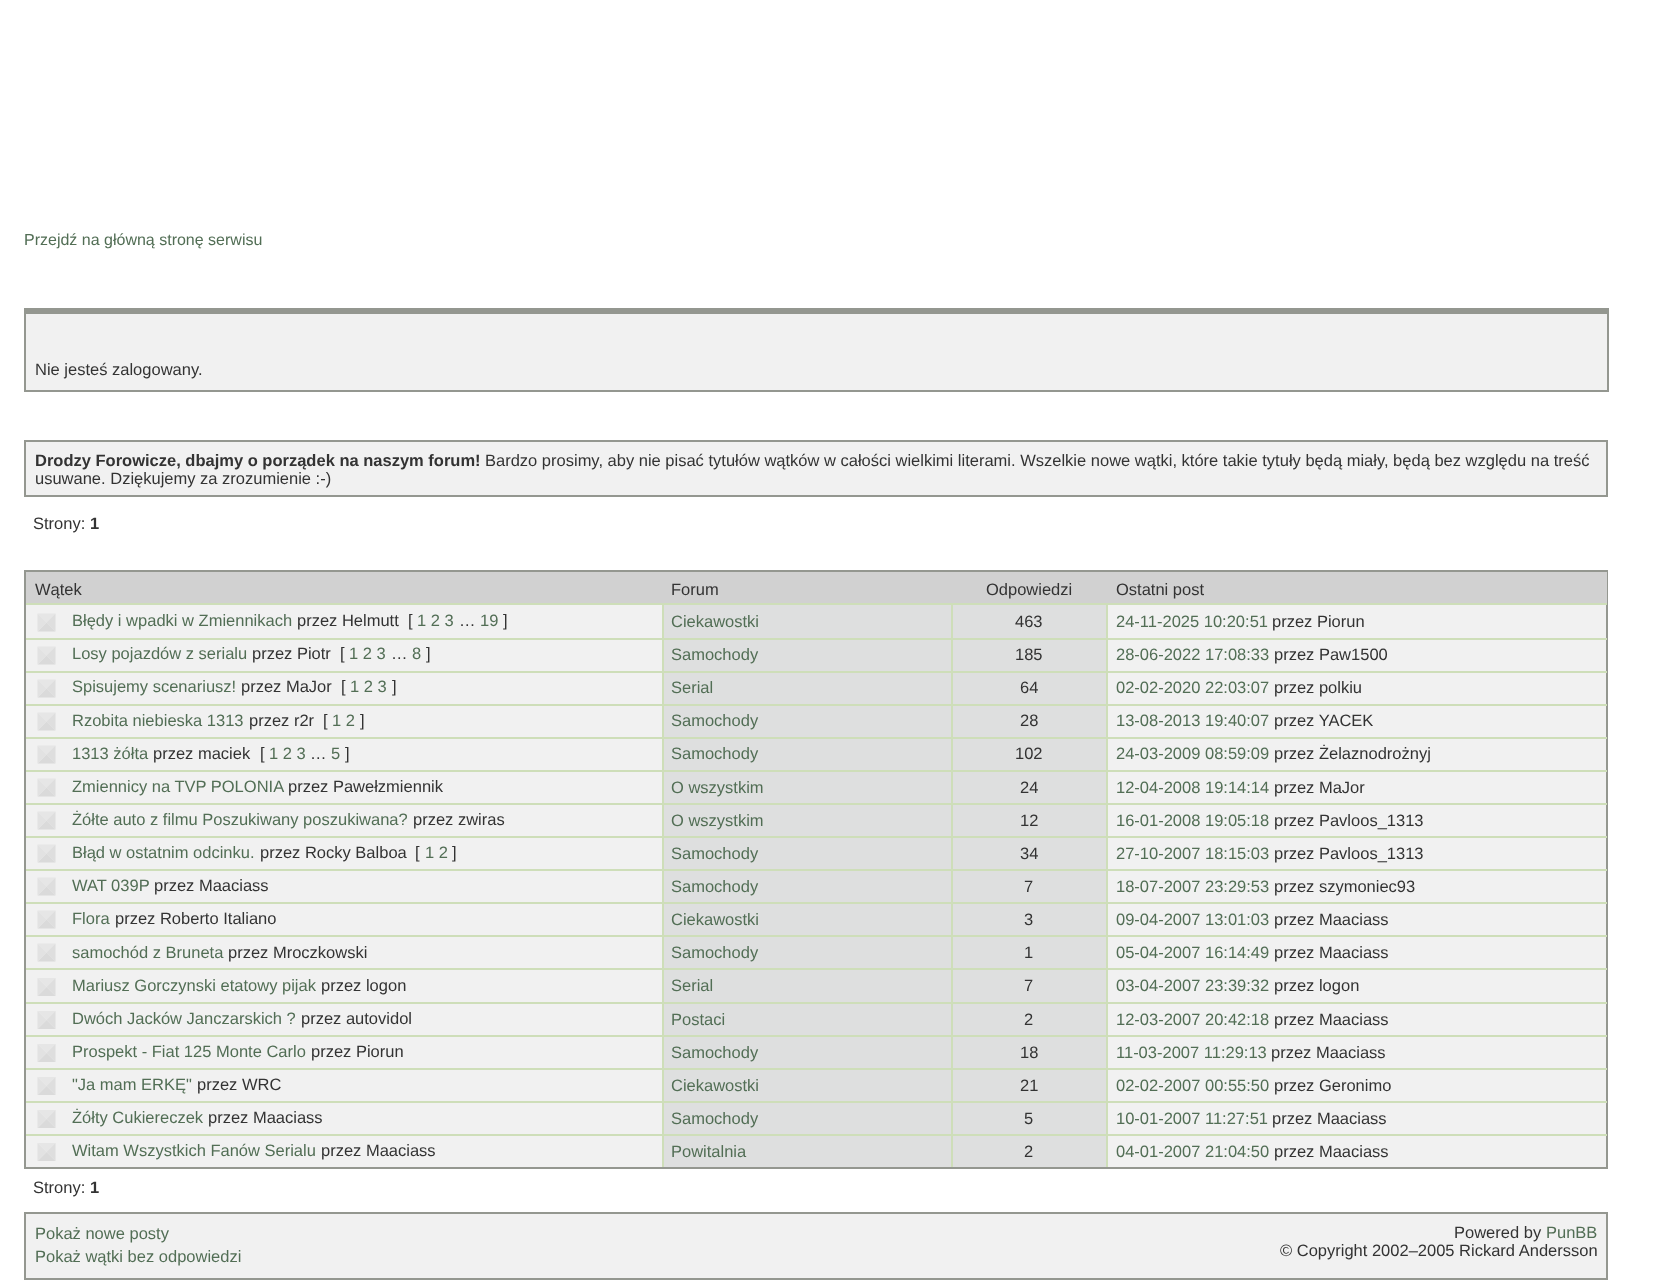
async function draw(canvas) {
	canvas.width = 1654;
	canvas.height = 1286;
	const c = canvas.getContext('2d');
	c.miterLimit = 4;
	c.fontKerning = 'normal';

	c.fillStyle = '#fff';
	c.fillRect(0, 0, 1654, 1286);
	c.font = '16px Liberation Sans';
	c.fillStyle = '#526e55';
	c.fillText('Przejdź na główną stronę serwisu', 24, 245);
	for (const [x, y, w, h, color] of [
		[26, 314, 1581, 76, '#f1f1f1'],
		[24, 308, 1584, 6, '#949790'],
		[1607, 308, 2, 84, '#949790'],
		[24, 390, 1584, 2, '#949790'],
		[24, 308, 2, 84, '#949790'],
	]) {
		c.fillStyle = color;
		c.fillRect(x, y, w, h);
	}
	c.font = '16.5px Liberation Sans';
	c.fillStyle = '#333';
	c.fillText('Nie jesteś zalogowany.', 35, 375);
	c.fillStyle = '#f1f1f1';
	c.beginPath();
	c.rect(25, 441, 1582, 55);
	c.fill();
	c.strokeStyle = '#949790';
	c.lineWidth = 2;
	c.stroke();
	c.font = 'bold 16.5px Liberation Sans';
	c.fillStyle = '#333';
	c.fillText('Drodzy Forowicze, dbajmy o porządek na naszym forum!', 35, 466);
	c.font = '16.5px Liberation Sans';
	for (const [text, x, y] of [
		['Bardzo prosimy, aby nie pisać tytułów wątków w całości wielkimi literami. Wszelkie nowe wątki, które takie tytuły będą miały, będą bez względu na treść', 485, 466],
		['usuwane. Dziękujemy za zrozumienie :-)', 35, 484],
		['Strony:', 33, 529],
	]) {
		c.fillText(text, x, y);
	}
	c.font = 'bold 16.5px Liberation Sans';
	c.fillText('1', 90, 529);
	c.fillStyle = '#f1f1f1';
	c.fillRect(26, 605, 1580, 562);
	c.strokeRect(25, 571, 1582, 597);
	c.fillStyle = '#d1d1d1';
	c.fillRect(26, 572, 1581, 31);
	c.font = '16.5px Liberation Sans';
	c.fillStyle = '#333';
	for (const [text, x, y] of [
		['Wątek', 35, 595],
		['Forum', 671, 595],
		['Odpowiedzi', 986, 595],
		['Ostatni post', 1116, 595],
	]) {
		c.fillText(text, x, y);
	}
	c.fillStyle = '#e6e6e6';
	c.beginPath();
	c.moveTo(37.5, 613.5);
	c.lineTo(55.5, 613.5);
	c.lineTo(46.5, 622.5);
	c.closePath();
	c.fill();
	c.fillStyle = '#dedede';
	c.beginPath();
	c.moveTo(55.5, 613.5);
	c.lineTo(55.5, 631.5);
	c.lineTo(46.5, 622.5);
	c.closePath();
	c.fill();
	c.fillStyle = '#dadada';
	c.beginPath();
	c.moveTo(55.5, 631.5);
	c.lineTo(37.5, 631.5);
	c.lineTo(46.5, 622.5);
	c.closePath();
	c.fill();
	c.fillStyle = '#e2e2e2';
	c.beginPath();
	c.moveTo(37.5, 631.5);
	c.lineTo(37.5, 613.5);
	c.lineTo(46.5, 622.5);
	c.closePath();
	c.fill();
	c.fillStyle = '#526e55';
	c.fillText('Błędy i wpadki w Zmiennikach', 72, 626);
	c.fillStyle = '#333';
	c.fillText('przez Helmutt', 297, 626);
	c.fillText('[', 408, 626);
	c.fillStyle = '#526e55';
	c.fillText('1 2 3', 417, 626);
	c.fillStyle = '#333';
	c.fillText('…', 459, 626);
	c.fillStyle = '#526e55';
	c.fillText('19', 480, 626);
	c.fillStyle = '#333';
	c.fillText(']', 503, 626);
	for (const [x, y, w, h, color] of [
		[664, 605, 287, 33, '#dedfdf'],
		[26, 603, 1581, 2, '#cedeb9'],
		[662, 603, 2, 35, '#cedeb9'],
	]) {
		c.fillStyle = color;
		c.fillRect(x, y, w, h);
	}
	c.fillStyle = '#526e55';
	c.fillText('Ciekawostki', 671, 627);
	c.fillStyle = '#dedfdf';
	c.fillRect(953, 605, 153, 33);
	c.fillStyle = '#cedeb9';
	c.fillRect(951, 603, 2, 35);
	c.fillStyle = '#333';
	c.fillText('463', 1015, 627);
	for (const [x, y, w, h, color] of [
		[26, 638, 1581, 2, '#cedeb9'],
		[26, 671, 1581, 2, '#cedeb9'],
		[26, 704, 1581, 2, '#cedeb9'],
		[26, 737, 1581, 2, '#cedeb9'],
		[26, 770, 1581, 2, '#cedeb9'],
		[26, 803, 1581, 2, '#cedeb9'],
		[26, 836, 1581, 2, '#cedeb9'],
		[26, 869, 1581, 2, '#cedeb9'],
		[26, 902, 1581, 2, '#cedeb9'],
		[26, 935, 1581, 2, '#cedeb9'],
		[26, 968, 1581, 2, '#cedeb9'],
		[1106, 603, 2, 399, '#cedeb9'],
	]) {
		c.fillStyle = color;
		c.fillRect(x, y, w, h);
	}
	c.fillStyle = '#526e55';
	c.fillText('24-11-2025 10:20:51', 1116, 627);
	c.fillStyle = '#333';
	c.fillText('przez Piorun', 1272, 627);
	c.fillStyle = '#e6e6e6';
	c.beginPath();
	c.moveTo(37.5, 646.5);
	c.lineTo(55.5, 646.5);
	c.lineTo(46.5, 655.5);
	c.closePath();
	c.fill();
	c.fillStyle = '#dedede';
	c.beginPath();
	c.moveTo(55.5, 646.5);
	c.lineTo(55.5, 664.5);
	c.lineTo(46.5, 655.5);
	c.closePath();
	c.fill();
	c.fillStyle = '#dadada';
	c.beginPath();
	c.moveTo(55.5, 664.5);
	c.lineTo(37.5, 664.5);
	c.lineTo(46.5, 655.5);
	c.closePath();
	c.fill();
	c.fillStyle = '#e2e2e2';
	c.beginPath();
	c.moveTo(37.5, 664.5);
	c.lineTo(37.5, 646.5);
	c.lineTo(46.5, 655.5);
	c.closePath();
	c.fill();
	c.fillStyle = '#526e55';
	c.fillText('Losy pojazdów z serialu', 72, 659);
	c.fillStyle = '#333';
	c.fillText('przez Piotr', 252, 659);
	c.fillText('[', 340, 659);
	c.fillStyle = '#526e55';
	c.fillText('1 2 3', 349, 659);
	c.fillStyle = '#333';
	c.fillText('…', 391, 659);
	c.fillStyle = '#526e55';
	c.fillText('8', 412, 659);
	c.fillStyle = '#333';
	c.fillText(']', 426, 659);
	c.fillStyle = '#dedfdf';
	c.fillRect(664, 640, 287, 31);
	c.fillStyle = '#cedeb9';
	c.fillRect(662, 638, 2, 33);
	c.fillStyle = '#526e55';
	c.fillText('Samochody', 671, 660);
	c.fillStyle = '#dedfdf';
	c.fillRect(953, 640, 153, 31);
	c.fillStyle = '#cedeb9';
	c.fillRect(951, 638, 2, 33);
	c.fillStyle = '#333';
	c.fillText('185', 1015, 660);
	c.fillStyle = '#526e55';
	c.fillText('28-06-2022 17:08:33', 1116, 660);
	c.fillStyle = '#333';
	c.fillText('przez Paw1500', 1274, 660);
	c.fillStyle = '#e6e6e6';
	c.beginPath();
	c.moveTo(37.5, 679.5);
	c.lineTo(55.5, 679.5);
	c.lineTo(46.5, 688.5);
	c.closePath();
	c.fill();
	c.fillStyle = '#dedede';
	c.beginPath();
	c.moveTo(55.5, 679.5);
	c.lineTo(55.5, 697.5);
	c.lineTo(46.5, 688.5);
	c.closePath();
	c.fill();
	c.fillStyle = '#dadada';
	c.beginPath();
	c.moveTo(55.5, 697.5);
	c.lineTo(37.5, 697.5);
	c.lineTo(46.5, 688.5);
	c.closePath();
	c.fill();
	c.fillStyle = '#e2e2e2';
	c.beginPath();
	c.moveTo(37.5, 697.5);
	c.lineTo(37.5, 679.5);
	c.lineTo(46.5, 688.5);
	c.closePath();
	c.fill();
	c.fillStyle = '#526e55';
	c.fillText('Spisujemy scenariusz!', 72, 692);
	c.fillStyle = '#333';
	c.fillText('przez MaJor', 241, 692);
	c.fillText('[', 341, 692);
	c.fillStyle = '#526e55';
	c.fillText('1 2 3', 350, 692);
	c.fillStyle = '#333';
	c.fillText(']', 392, 692);
	c.fillStyle = '#dedfdf';
	c.fillRect(664, 673, 287, 31);
	c.fillStyle = '#cedeb9';
	c.fillRect(662, 671, 2, 33);
	c.fillStyle = '#526e55';
	c.fillText('Serial', 671, 693);
	c.fillStyle = '#dedfdf';
	c.fillRect(953, 673, 153, 31);
	c.fillStyle = '#cedeb9';
	c.fillRect(951, 671, 2, 33);
	c.fillStyle = '#333';
	c.fillText('64', 1020, 693);
	c.fillStyle = '#526e55';
	c.fillText('02-02-2020 22:03:07', 1116, 693);
	c.fillStyle = '#333';
	c.fillText('przez polkiu', 1274, 693);
	c.fillStyle = '#e6e6e6';
	c.beginPath();
	c.moveTo(37.5, 712.5);
	c.lineTo(55.5, 712.5);
	c.lineTo(46.5, 721.5);
	c.closePath();
	c.fill();
	c.fillStyle = '#dedede';
	c.beginPath();
	c.moveTo(55.5, 712.5);
	c.lineTo(55.5, 730.5);
	c.lineTo(46.5, 721.5);
	c.closePath();
	c.fill();
	c.fillStyle = '#dadada';
	c.beginPath();
	c.moveTo(55.5, 730.5);
	c.lineTo(37.5, 730.5);
	c.lineTo(46.5, 721.5);
	c.closePath();
	c.fill();
	c.fillStyle = '#e2e2e2';
	c.beginPath();
	c.moveTo(37.5, 730.5);
	c.lineTo(37.5, 712.5);
	c.lineTo(46.5, 721.5);
	c.closePath();
	c.fill();
	c.fillStyle = '#526e55';
	c.fillText('Rzobita niebieska 1313', 72, 726);
	c.fillStyle = '#333';
	c.fillText('przez r2r', 249, 726);
	c.fillText('[', 323, 726);
	c.fillStyle = '#526e55';
	c.fillText('1 2', 332, 726);
	c.fillStyle = '#333';
	c.fillText(']', 360, 726);
	c.fillStyle = '#dedfdf';
	c.fillRect(664, 706, 287, 31);
	c.fillStyle = '#cedeb9';
	c.fillRect(662, 704, 2, 33);
	c.fillStyle = '#526e55';
	c.fillText('Samochody', 671, 726);
	c.fillStyle = '#dedfdf';
	c.fillRect(953, 706, 153, 31);
	c.fillStyle = '#cedeb9';
	c.fillRect(951, 704, 2, 33);
	c.fillStyle = '#333';
	c.fillText('28', 1020, 726);
	c.fillStyle = '#526e55';
	c.fillText('13-08-2013 19:40:07', 1116, 726);
	c.fillStyle = '#333';
	c.fillText('przez YACEK', 1274, 726);
	c.fillStyle = '#e6e6e6';
	c.beginPath();
	c.moveTo(37.5, 745.5);
	c.lineTo(55.5, 745.5);
	c.lineTo(46.5, 754.5);
	c.closePath();
	c.fill();
	c.fillStyle = '#dedede';
	c.beginPath();
	c.moveTo(55.5, 745.5);
	c.lineTo(55.5, 763.5);
	c.lineTo(46.5, 754.5);
	c.closePath();
	c.fill();
	c.fillStyle = '#dadada';
	c.beginPath();
	c.moveTo(55.5, 763.5);
	c.lineTo(37.5, 763.5);
	c.lineTo(46.5, 754.5);
	c.closePath();
	c.fill();
	c.fillStyle = '#e2e2e2';
	c.beginPath();
	c.moveTo(37.5, 763.5);
	c.lineTo(37.5, 745.5);
	c.lineTo(46.5, 754.5);
	c.closePath();
	c.fill();
	c.fillStyle = '#526e55';
	c.fillText('1313 żółta', 72, 759);
	c.fillStyle = '#333';
	c.fillText('przez maciek', 153, 759);
	c.fillText('[', 260, 759);
	c.fillStyle = '#526e55';
	c.fillText('1 2 3', 269, 759);
	c.fillStyle = '#333';
	c.fillText('…', 310, 759);
	c.fillStyle = '#526e55';
	c.fillText('5', 331, 759);
	c.fillStyle = '#333';
	c.fillText(']', 345, 759);
	c.fillStyle = '#dedfdf';
	c.fillRect(664, 739, 287, 31);
	c.fillStyle = '#cedeb9';
	c.fillRect(662, 737, 2, 33);
	c.fillStyle = '#526e55';
	c.fillText('Samochody', 671, 759);
	c.fillStyle = '#dedfdf';
	c.fillRect(953, 739, 153, 31);
	c.fillStyle = '#cedeb9';
	c.fillRect(951, 737, 2, 33);
	c.fillStyle = '#333';
	c.fillText('102', 1015, 759);
	c.fillStyle = '#526e55';
	c.fillText('24-03-2009 08:59:09', 1116, 759);
	c.fillStyle = '#333';
	c.fillText('przez Żelaznodrożnyj', 1274, 759);
	c.fillStyle = '#e6e6e6';
	c.beginPath();
	c.moveTo(37.5, 778.5);
	c.lineTo(55.5, 778.5);
	c.lineTo(46.5, 787.5);
	c.closePath();
	c.fill();
	c.fillStyle = '#dedede';
	c.beginPath();
	c.moveTo(55.5, 778.5);
	c.lineTo(55.5, 796.5);
	c.lineTo(46.5, 787.5);
	c.closePath();
	c.fill();
	c.fillStyle = '#dadada';
	c.beginPath();
	c.moveTo(55.5, 796.5);
	c.lineTo(37.5, 796.5);
	c.lineTo(46.5, 787.5);
	c.closePath();
	c.fill();
	c.fillStyle = '#e2e2e2';
	c.beginPath();
	c.moveTo(37.5, 796.5);
	c.lineTo(37.5, 778.5);
	c.lineTo(46.5, 787.5);
	c.closePath();
	c.fill();
	c.fillStyle = '#526e55';
	c.fillText('Zmiennicy na TVP POLONIA', 72, 792);
	c.fillStyle = '#333';
	c.fillText('przez Pawełzmiennik', 288, 792);
	c.fillStyle = '#dedfdf';
	c.fillRect(664, 772, 287, 31);
	c.fillStyle = '#cedeb9';
	c.fillRect(662, 770, 2, 33);
	c.fillStyle = '#526e55';
	c.fillText('O wszystkim', 671, 793);
	c.fillStyle = '#dedfdf';
	c.fillRect(953, 772, 153, 31);
	c.fillStyle = '#cedeb9';
	c.fillRect(951, 770, 2, 33);
	c.fillStyle = '#333';
	c.fillText('24', 1020, 793);
	c.fillStyle = '#526e55';
	c.fillText('12-04-2008 19:14:14', 1116, 793);
	c.fillStyle = '#333';
	c.fillText('przez MaJor', 1274, 793);
	c.fillStyle = '#e6e6e6';
	c.beginPath();
	c.moveTo(37.5, 811.5);
	c.lineTo(55.5, 811.5);
	c.lineTo(46.5, 820.5);
	c.closePath();
	c.fill();
	c.fillStyle = '#dedede';
	c.beginPath();
	c.moveTo(55.5, 811.5);
	c.lineTo(55.5, 829.5);
	c.lineTo(46.5, 820.5);
	c.closePath();
	c.fill();
	c.fillStyle = '#dadada';
	c.beginPath();
	c.moveTo(55.5, 829.5);
	c.lineTo(37.5, 829.5);
	c.lineTo(46.5, 820.5);
	c.closePath();
	c.fill();
	c.fillStyle = '#e2e2e2';
	c.beginPath();
	c.moveTo(37.5, 829.5);
	c.lineTo(37.5, 811.5);
	c.lineTo(46.5, 820.5);
	c.closePath();
	c.fill();
	c.fillStyle = '#526e55';
	c.fillText('Żółte auto z filmu Poszukiwany poszukiwana?', 72, 825);
	c.fillStyle = '#333';
	c.fillText('przez zwiras', 413, 825);
	c.fillStyle = '#dedfdf';
	c.fillRect(664, 805, 287, 31);
	c.fillStyle = '#cedeb9';
	c.fillRect(662, 803, 2, 33);
	c.fillStyle = '#526e55';
	c.fillText('O wszystkim', 671, 826);
	c.fillStyle = '#dedfdf';
	c.fillRect(953, 805, 153, 31);
	c.fillStyle = '#cedeb9';
	c.fillRect(951, 803, 2, 33);
	c.fillStyle = '#333';
	c.fillText('12', 1020, 826);
	c.fillStyle = '#526e55';
	c.fillText('16-01-2008 19:05:18', 1116, 826);
	c.fillStyle = '#333';
	c.fillText('przez Pavloos_1313', 1274, 826);
	c.fillStyle = '#e6e6e6';
	c.beginPath();
	c.moveTo(37.5, 844.5);
	c.lineTo(55.5, 844.5);
	c.lineTo(46.5, 853.5);
	c.closePath();
	c.fill();
	c.fillStyle = '#dedede';
	c.beginPath();
	c.moveTo(55.5, 844.5);
	c.lineTo(55.5, 862.5);
	c.lineTo(46.5, 853.5);
	c.closePath();
	c.fill();
	c.fillStyle = '#dadada';
	c.beginPath();
	c.moveTo(55.5, 862.5);
	c.lineTo(37.5, 862.5);
	c.lineTo(46.5, 853.5);
	c.closePath();
	c.fill();
	c.fillStyle = '#e2e2e2';
	c.beginPath();
	c.moveTo(37.5, 862.5);
	c.lineTo(37.5, 844.5);
	c.lineTo(46.5, 853.5);
	c.closePath();
	c.fill();
	c.fillStyle = '#526e55';
	c.fillText('Błąd w ostatnim odcinku.', 72, 858);
	c.fillStyle = '#333';
	c.fillText('przez Rocky Balboa', 260, 858);
	c.fillText('[', 415, 858);
	c.fillStyle = '#526e55';
	c.fillText('1 2', 425, 858);
	c.fillStyle = '#333';
	c.fillText(']', 452, 858);
	c.fillStyle = '#dedfdf';
	c.fillRect(664, 838, 287, 31);
	c.fillStyle = '#cedeb9';
	c.fillRect(662, 836, 2, 33);
	c.fillStyle = '#526e55';
	c.fillText('Samochody', 671, 859);
	c.fillStyle = '#dedfdf';
	c.fillRect(953, 838, 153, 31);
	c.fillStyle = '#cedeb9';
	c.fillRect(951, 836, 2, 33);
	c.fillStyle = '#333';
	c.fillText('34', 1020, 859);
	c.fillStyle = '#526e55';
	c.fillText('27-10-2007 18:15:03', 1116, 859);
	c.fillStyle = '#333';
	c.fillText('przez Pavloos_1313', 1274, 859);
	c.fillStyle = '#e6e6e6';
	c.beginPath();
	c.moveTo(37.5, 877.5);
	c.lineTo(55.5, 877.5);
	c.lineTo(46.5, 886.5);
	c.closePath();
	c.fill();
	c.fillStyle = '#dedede';
	c.beginPath();
	c.moveTo(55.5, 877.5);
	c.lineTo(55.5, 895.5);
	c.lineTo(46.5, 886.5);
	c.closePath();
	c.fill();
	c.fillStyle = '#dadada';
	c.beginPath();
	c.moveTo(55.5, 895.5);
	c.lineTo(37.5, 895.5);
	c.lineTo(46.5, 886.5);
	c.closePath();
	c.fill();
	c.fillStyle = '#e2e2e2';
	c.beginPath();
	c.moveTo(37.5, 895.5);
	c.lineTo(37.5, 877.5);
	c.lineTo(46.5, 886.5);
	c.closePath();
	c.fill();
	c.fillStyle = '#526e55';
	c.fillText('WAT 039P', 72, 891);
	c.fillStyle = '#333';
	c.fillText('przez Maaciass', 154, 891);
	c.fillStyle = '#dedfdf';
	c.fillRect(664, 871, 287, 31);
	c.fillStyle = '#cedeb9';
	c.fillRect(662, 869, 2, 33);
	c.fillStyle = '#526e55';
	c.fillText('Samochody', 671, 892);
	c.fillStyle = '#dedfdf';
	c.fillRect(953, 871, 153, 31);
	c.fillStyle = '#cedeb9';
	c.fillRect(951, 869, 2, 33);
	c.fillStyle = '#333';
	c.fillText('7', 1024, 892);
	c.fillStyle = '#526e55';
	c.fillText('18-07-2007 23:29:53', 1116, 892);
	c.fillStyle = '#333';
	c.fillText('przez szymoniec93', 1274, 892);
	c.fillStyle = '#e6e6e6';
	c.beginPath();
	c.moveTo(37.5, 910.5);
	c.lineTo(55.5, 910.5);
	c.lineTo(46.5, 919.5);
	c.closePath();
	c.fill();
	c.fillStyle = '#dedede';
	c.beginPath();
	c.moveTo(55.5, 910.5);
	c.lineTo(55.5, 928.5);
	c.lineTo(46.5, 919.5);
	c.closePath();
	c.fill();
	c.fillStyle = '#dadada';
	c.beginPath();
	c.moveTo(55.5, 928.5);
	c.lineTo(37.5, 928.5);
	c.lineTo(46.5, 919.5);
	c.closePath();
	c.fill();
	c.fillStyle = '#e2e2e2';
	c.beginPath();
	c.moveTo(37.5, 928.5);
	c.lineTo(37.5, 910.5);
	c.lineTo(46.5, 919.5);
	c.closePath();
	c.fill();
	c.fillStyle = '#526e55';
	c.fillText('Flora', 72, 924);
	c.fillStyle = '#333';
	c.fillText('przez Roberto Italiano', 115, 924);
	c.fillStyle = '#dedfdf';
	c.fillRect(664, 904, 287, 31);
	c.fillStyle = '#cedeb9';
	c.fillRect(662, 902, 2, 33);
	c.fillStyle = '#526e55';
	c.fillText('Ciekawostki', 671, 925);
	c.fillStyle = '#dedfdf';
	c.fillRect(953, 904, 153, 31);
	c.fillStyle = '#cedeb9';
	c.fillRect(951, 902, 2, 33);
	c.fillStyle = '#333';
	c.fillText('3', 1024, 925);
	c.fillStyle = '#526e55';
	c.fillText('09-04-2007 13:01:03', 1116, 925);
	c.fillStyle = '#333';
	c.fillText('przez Maaciass', 1274, 925);
	c.fillStyle = '#e6e6e6';
	c.beginPath();
	c.moveTo(37.5, 943.5);
	c.lineTo(55.5, 943.5);
	c.lineTo(46.5, 952.5);
	c.closePath();
	c.fill();
	c.fillStyle = '#dedede';
	c.beginPath();
	c.moveTo(55.5, 943.5);
	c.lineTo(55.5, 961.5);
	c.lineTo(46.5, 952.5);
	c.closePath();
	c.fill();
	c.fillStyle = '#dadada';
	c.beginPath();
	c.moveTo(55.5, 961.5);
	c.lineTo(37.5, 961.5);
	c.lineTo(46.5, 952.5);
	c.closePath();
	c.fill();
	c.fillStyle = '#e2e2e2';
	c.beginPath();
	c.moveTo(37.5, 961.5);
	c.lineTo(37.5, 943.5);
	c.lineTo(46.5, 952.5);
	c.closePath();
	c.fill();
	c.fillStyle = '#526e55';
	c.fillText('samochód z Bruneta', 72, 958);
	c.fillStyle = '#333';
	c.fillText('przez Mroczkowski', 228, 958);
	c.fillStyle = '#dedfdf';
	c.fillRect(664, 937, 287, 31);
	c.fillStyle = '#cedeb9';
	c.fillRect(662, 935, 2, 33);
	c.fillStyle = '#526e55';
	c.fillText('Samochody', 671, 958);
	c.fillStyle = '#dedfdf';
	c.fillRect(953, 937, 153, 31);
	c.fillStyle = '#cedeb9';
	c.fillRect(951, 935, 2, 33);
	c.fillStyle = '#333';
	c.fillText('1', 1024, 958);
	c.fillStyle = '#526e55';
	c.fillText('05-04-2007 16:14:49', 1116, 958);
	c.fillStyle = '#333';
	c.fillText('przez Maaciass', 1274, 958);
	c.fillStyle = '#e6e6e6';
	c.beginPath();
	c.moveTo(37.5, 978);
	c.lineTo(55.5, 978);
	c.lineTo(46.5, 987);
	c.closePath();
	c.fill();
	c.fillStyle = '#dedede';
	c.beginPath();
	c.moveTo(55.5, 978);
	c.lineTo(55.5, 996);
	c.lineTo(46.5, 987);
	c.closePath();
	c.fill();
	c.fillStyle = '#dadada';
	c.beginPath();
	c.moveTo(55.5, 996);
	c.lineTo(37.5, 996);
	c.lineTo(46.5, 987);
	c.closePath();
	c.fill();
	c.fillStyle = '#e2e2e2';
	c.beginPath();
	c.moveTo(37.5, 996);
	c.lineTo(37.5, 978);
	c.lineTo(46.5, 987);
	c.closePath();
	c.fill();
	c.fillStyle = '#526e55';
	c.fillText('Mariusz Gorczynski etatowy pijak', 72, 991);
	c.fillStyle = '#333';
	c.fillText('przez logon', 321, 991);
	c.fillStyle = '#dedfdf';
	c.fillRect(664, 970, 287, 32);
	c.fillStyle = '#cedeb9';
	c.fillRect(662, 968, 2, 34);
	c.fillStyle = '#526e55';
	c.fillText('Serial', 671, 991);
	c.fillStyle = '#dedfdf';
	c.fillRect(953, 970, 153, 32);
	c.fillStyle = '#cedeb9';
	c.fillRect(951, 968, 2, 34);
	c.fillStyle = '#333';
	c.fillText('7', 1024, 991);
	c.fillStyle = '#526e55';
	c.fillText('03-04-2007 23:39:32', 1116, 991);
	c.fillStyle = '#333';
	c.fillText('przez logon', 1274, 991);
	c.fillStyle = '#e6e6e6';
	c.beginPath();
	c.moveTo(37.5, 1011);
	c.lineTo(55.5, 1011);
	c.lineTo(46.5, 1020);
	c.closePath();
	c.fill();
	c.fillStyle = '#dedede';
	c.beginPath();
	c.moveTo(55.5, 1011);
	c.lineTo(55.5, 1029);
	c.lineTo(46.5, 1020);
	c.closePath();
	c.fill();
	c.fillStyle = '#dadada';
	c.beginPath();
	c.moveTo(55.5, 1029);
	c.lineTo(37.5, 1029);
	c.lineTo(46.5, 1020);
	c.closePath();
	c.fill();
	c.fillStyle = '#e2e2e2';
	c.beginPath();
	c.moveTo(37.5, 1029);
	c.lineTo(37.5, 1011);
	c.lineTo(46.5, 1020);
	c.closePath();
	c.fill();
	c.fillStyle = '#526e55';
	c.fillText('Dwóch Jacków Janczarskich ?', 72, 1024);
	c.fillStyle = '#333';
	c.fillText('przez autovidol', 301, 1024);
	for (const [x, y, w, h, color] of [
		[664, 1004, 287, 31, '#dedfdf'],
		[26, 1002, 1080, 2, '#cedeb9'],
		[662, 1002, 2, 33, '#cedeb9'],
	]) {
		c.fillStyle = color;
		c.fillRect(x, y, w, h);
	}
	c.fillStyle = '#526e55';
	c.fillText('Postaci', 671, 1025);
	c.fillStyle = '#dedfdf';
	c.fillRect(953, 1004, 153, 31);
	c.fillStyle = '#cedeb9';
	c.fillRect(951, 1002, 2, 33);
	c.fillStyle = '#333';
	c.fillText('2', 1024, 1025);
	c.fillStyle = '#cedeb9';
	c.fillRect(1106, 1002, 501, 2);
	c.fillRect(1106, 1002, 2, 33);
	c.fillStyle = '#526e55';
	c.fillText('12-03-2007 20:42:18', 1116, 1025);
	c.fillStyle = '#333';
	c.fillText('przez Maaciass', 1274, 1025);
	c.fillStyle = '#cedeb9';
	c.fillRect(26, 1035, 636, 2);
	c.fillStyle = '#e6e6e6';
	c.beginPath();
	c.moveTo(37.5, 1044);
	c.lineTo(55.5, 1044);
	c.lineTo(46.5, 1053);
	c.closePath();
	c.fill();
	c.fillStyle = '#dedede';
	c.beginPath();
	c.moveTo(55.5, 1044);
	c.lineTo(55.5, 1062);
	c.lineTo(46.5, 1053);
	c.closePath();
	c.fill();
	c.fillStyle = '#dadada';
	c.beginPath();
	c.moveTo(55.5, 1062);
	c.lineTo(37.5, 1062);
	c.lineTo(46.5, 1053);
	c.closePath();
	c.fill();
	c.fillStyle = '#e2e2e2';
	c.beginPath();
	c.moveTo(37.5, 1062);
	c.lineTo(37.5, 1044);
	c.lineTo(46.5, 1053);
	c.closePath();
	c.fill();
	c.fillStyle = '#526e55';
	c.fillText('Prospekt - Fiat 125 Monte Carlo', 72, 1057);
	c.fillStyle = '#333';
	c.fillText('przez Piorun', 311, 1057);
	for (const [x, y, w, h, color] of [
		[664, 1037, 287, 31, '#dedfdf'],
		[662, 1035, 444, 2, '#cedeb9'],
		[662, 1035, 2, 33, '#cedeb9'],
	]) {
		c.fillStyle = color;
		c.fillRect(x, y, w, h);
	}
	c.fillStyle = '#526e55';
	c.fillText('Samochody', 671, 1058);
	c.fillStyle = '#dedfdf';
	c.fillRect(953, 1037, 153, 31);
	c.fillStyle = '#cedeb9';
	c.fillRect(951, 1035, 2, 33);
	c.fillStyle = '#333';
	c.fillText('18', 1020, 1058);
	c.fillStyle = '#cedeb9';
	c.fillRect(1106, 1035, 501, 2);
	c.fillRect(1106, 1035, 2, 33);
	c.fillStyle = '#526e55';
	c.fillText('11-03-2007 11:29:13', 1116, 1058);
	c.fillStyle = '#333';
	c.fillText('przez Maaciass', 1271, 1058);
	c.fillStyle = '#cedeb9';
	c.fillRect(26, 1068, 636, 2);
	c.fillStyle = '#e6e6e6';
	c.beginPath();
	c.moveTo(37.5, 1077);
	c.lineTo(55.5, 1077);
	c.lineTo(46.5, 1086);
	c.closePath();
	c.fill();
	c.fillStyle = '#dedede';
	c.beginPath();
	c.moveTo(55.5, 1077);
	c.lineTo(55.5, 1095);
	c.lineTo(46.5, 1086);
	c.closePath();
	c.fill();
	c.fillStyle = '#dadada';
	c.beginPath();
	c.moveTo(55.5, 1095);
	c.lineTo(37.5, 1095);
	c.lineTo(46.5, 1086);
	c.closePath();
	c.fill();
	c.fillStyle = '#e2e2e2';
	c.beginPath();
	c.moveTo(37.5, 1095);
	c.lineTo(37.5, 1077);
	c.lineTo(46.5, 1086);
	c.closePath();
	c.fill();
	c.fillStyle = '#526e55';
	c.fillText('"Ja mam ERKĘ"', 72, 1090);
	c.fillStyle = '#333';
	c.fillText('przez WRC', 197, 1090);
	for (const [x, y, w, h, color] of [
		[664, 1070, 287, 31, '#dedfdf'],
		[662, 1068, 444, 2, '#cedeb9'],
		[662, 1068, 2, 33, '#cedeb9'],
	]) {
		c.fillStyle = color;
		c.fillRect(x, y, w, h);
	}
	c.fillStyle = '#526e55';
	c.fillText('Ciekawostki', 671, 1091);
	c.fillStyle = '#dedfdf';
	c.fillRect(953, 1070, 153, 31);
	c.fillStyle = '#cedeb9';
	c.fillRect(951, 1068, 2, 33);
	c.fillStyle = '#333';
	c.fillText('21', 1020, 1091);
	c.fillStyle = '#cedeb9';
	c.fillRect(1106, 1068, 501, 2);
	c.fillRect(1106, 1068, 2, 33);
	c.fillStyle = '#526e55';
	c.fillText('02-02-2007 00:55:50', 1116, 1091);
	c.fillStyle = '#333';
	c.fillText('przez Geronimo', 1274, 1091);
	c.fillStyle = '#cedeb9';
	c.fillRect(26, 1101, 636, 2);
	c.fillStyle = '#e6e6e6';
	c.beginPath();
	c.moveTo(37.5, 1110);
	c.lineTo(55.5, 1110);
	c.lineTo(46.5, 1119);
	c.closePath();
	c.fill();
	c.fillStyle = '#dedede';
	c.beginPath();
	c.moveTo(55.5, 1110);
	c.lineTo(55.5, 1128);
	c.lineTo(46.5, 1119);
	c.closePath();
	c.fill();
	c.fillStyle = '#dadada';
	c.beginPath();
	c.moveTo(55.5, 1128);
	c.lineTo(37.5, 1128);
	c.lineTo(46.5, 1119);
	c.closePath();
	c.fill();
	c.fillStyle = '#e2e2e2';
	c.beginPath();
	c.moveTo(37.5, 1128);
	c.lineTo(37.5, 1110);
	c.lineTo(46.5, 1119);
	c.closePath();
	c.fill();
	c.fillStyle = '#526e55';
	c.fillText('Żółty Cukiereczek', 72, 1123);
	c.fillStyle = '#333';
	c.fillText('przez Maaciass', 208, 1123);
	for (const [x, y, w, h, color] of [
		[664, 1103, 287, 31, '#dedfdf'],
		[662, 1101, 444, 2, '#cedeb9'],
		[662, 1101, 2, 33, '#cedeb9'],
	]) {
		c.fillStyle = color;
		c.fillRect(x, y, w, h);
	}
	c.fillStyle = '#526e55';
	c.fillText('Samochody', 671, 1124);
	c.fillStyle = '#dedfdf';
	c.fillRect(953, 1103, 153, 31);
	c.fillStyle = '#cedeb9';
	c.fillRect(951, 1101, 2, 33);
	c.fillStyle = '#333';
	c.fillText('5', 1024, 1124);
	c.fillStyle = '#cedeb9';
	c.fillRect(1106, 1101, 501, 2);
	c.fillRect(1106, 1101, 2, 33);
	c.fillStyle = '#526e55';
	c.fillText('10-01-2007 11:27:51', 1116, 1124);
	c.fillStyle = '#333';
	c.fillText('przez Maaciass', 1272, 1124);
	c.fillStyle = '#cedeb9';
	c.fillRect(26, 1134, 636, 2);
	c.fillStyle = '#e6e6e6';
	c.beginPath();
	c.moveTo(37.5, 1143);
	c.lineTo(55.5, 1143);
	c.lineTo(46.5, 1152);
	c.closePath();
	c.fill();
	c.fillStyle = '#dedede';
	c.beginPath();
	c.moveTo(55.5, 1143);
	c.lineTo(55.5, 1161);
	c.lineTo(46.5, 1152);
	c.closePath();
	c.fill();
	c.fillStyle = '#dadada';
	c.beginPath();
	c.moveTo(55.5, 1161);
	c.lineTo(37.5, 1161);
	c.lineTo(46.5, 1152);
	c.closePath();
	c.fill();
	c.fillStyle = '#e2e2e2';
	c.beginPath();
	c.moveTo(37.5, 1161);
	c.lineTo(37.5, 1143);
	c.lineTo(46.5, 1152);
	c.closePath();
	c.fill();
	c.fillStyle = '#526e55';
	c.fillText('Witam Wszystkich Fanów Serialu', 72, 1156);
	c.fillStyle = '#333';
	c.fillText('przez Maaciass', 321, 1156);
	for (const [x, y, w, h, color] of [
		[664, 1136, 287, 31, '#dedfdf'],
		[662, 1134, 444, 2, '#cedeb9'],
		[662, 1134, 2, 33, '#cedeb9'],
	]) {
		c.fillStyle = color;
		c.fillRect(x, y, w, h);
	}
	c.fillStyle = '#526e55';
	c.fillText('Powitalnia', 671, 1157);
	c.fillStyle = '#dedfdf';
	c.fillRect(953, 1136, 153, 31);
	c.fillStyle = '#cedeb9';
	c.fillRect(951, 1134, 2, 33);
	c.fillStyle = '#333';
	c.fillText('2', 1024, 1157);
	c.fillStyle = '#cedeb9';
	c.fillRect(1106, 1134, 501, 2);
	c.fillRect(1106, 1134, 2, 33);
	c.fillStyle = '#526e55';
	c.fillText('04-01-2007 21:04:50', 1116, 1157);
	c.fillStyle = '#333';
	c.fillText('przez Maaciass', 1274, 1157);
	c.fillText('Strony:', 33, 1193);
	c.font = 'bold 16.5px Liberation Sans';
	c.fillText('1', 90, 1193);
	c.fillStyle = '#f1f1f1';
	c.beginPath();
	c.rect(25, 1213, 1582, 66);
	c.fill();
	c.stroke();
	c.font = '16.5px Liberation Sans';
	c.fillStyle = '#526e55';
	c.fillText('Pokaż nowe posty', 35, 1239);
	c.fillText('Pokaż wątki bez odpowiedzi', 35, 1262);
	c.fillStyle = '#333';
	c.fillText('Powered by', 1454, 1238);
	c.fillStyle = '#526e55';
	c.fillText('PunBB', 1546, 1238);
	c.fillStyle = '#333';
	c.fillText('© Copyright 2002–2005 Rickard Andersson', 1280, 1256);
}

draw(document.querySelector('canvas'));
